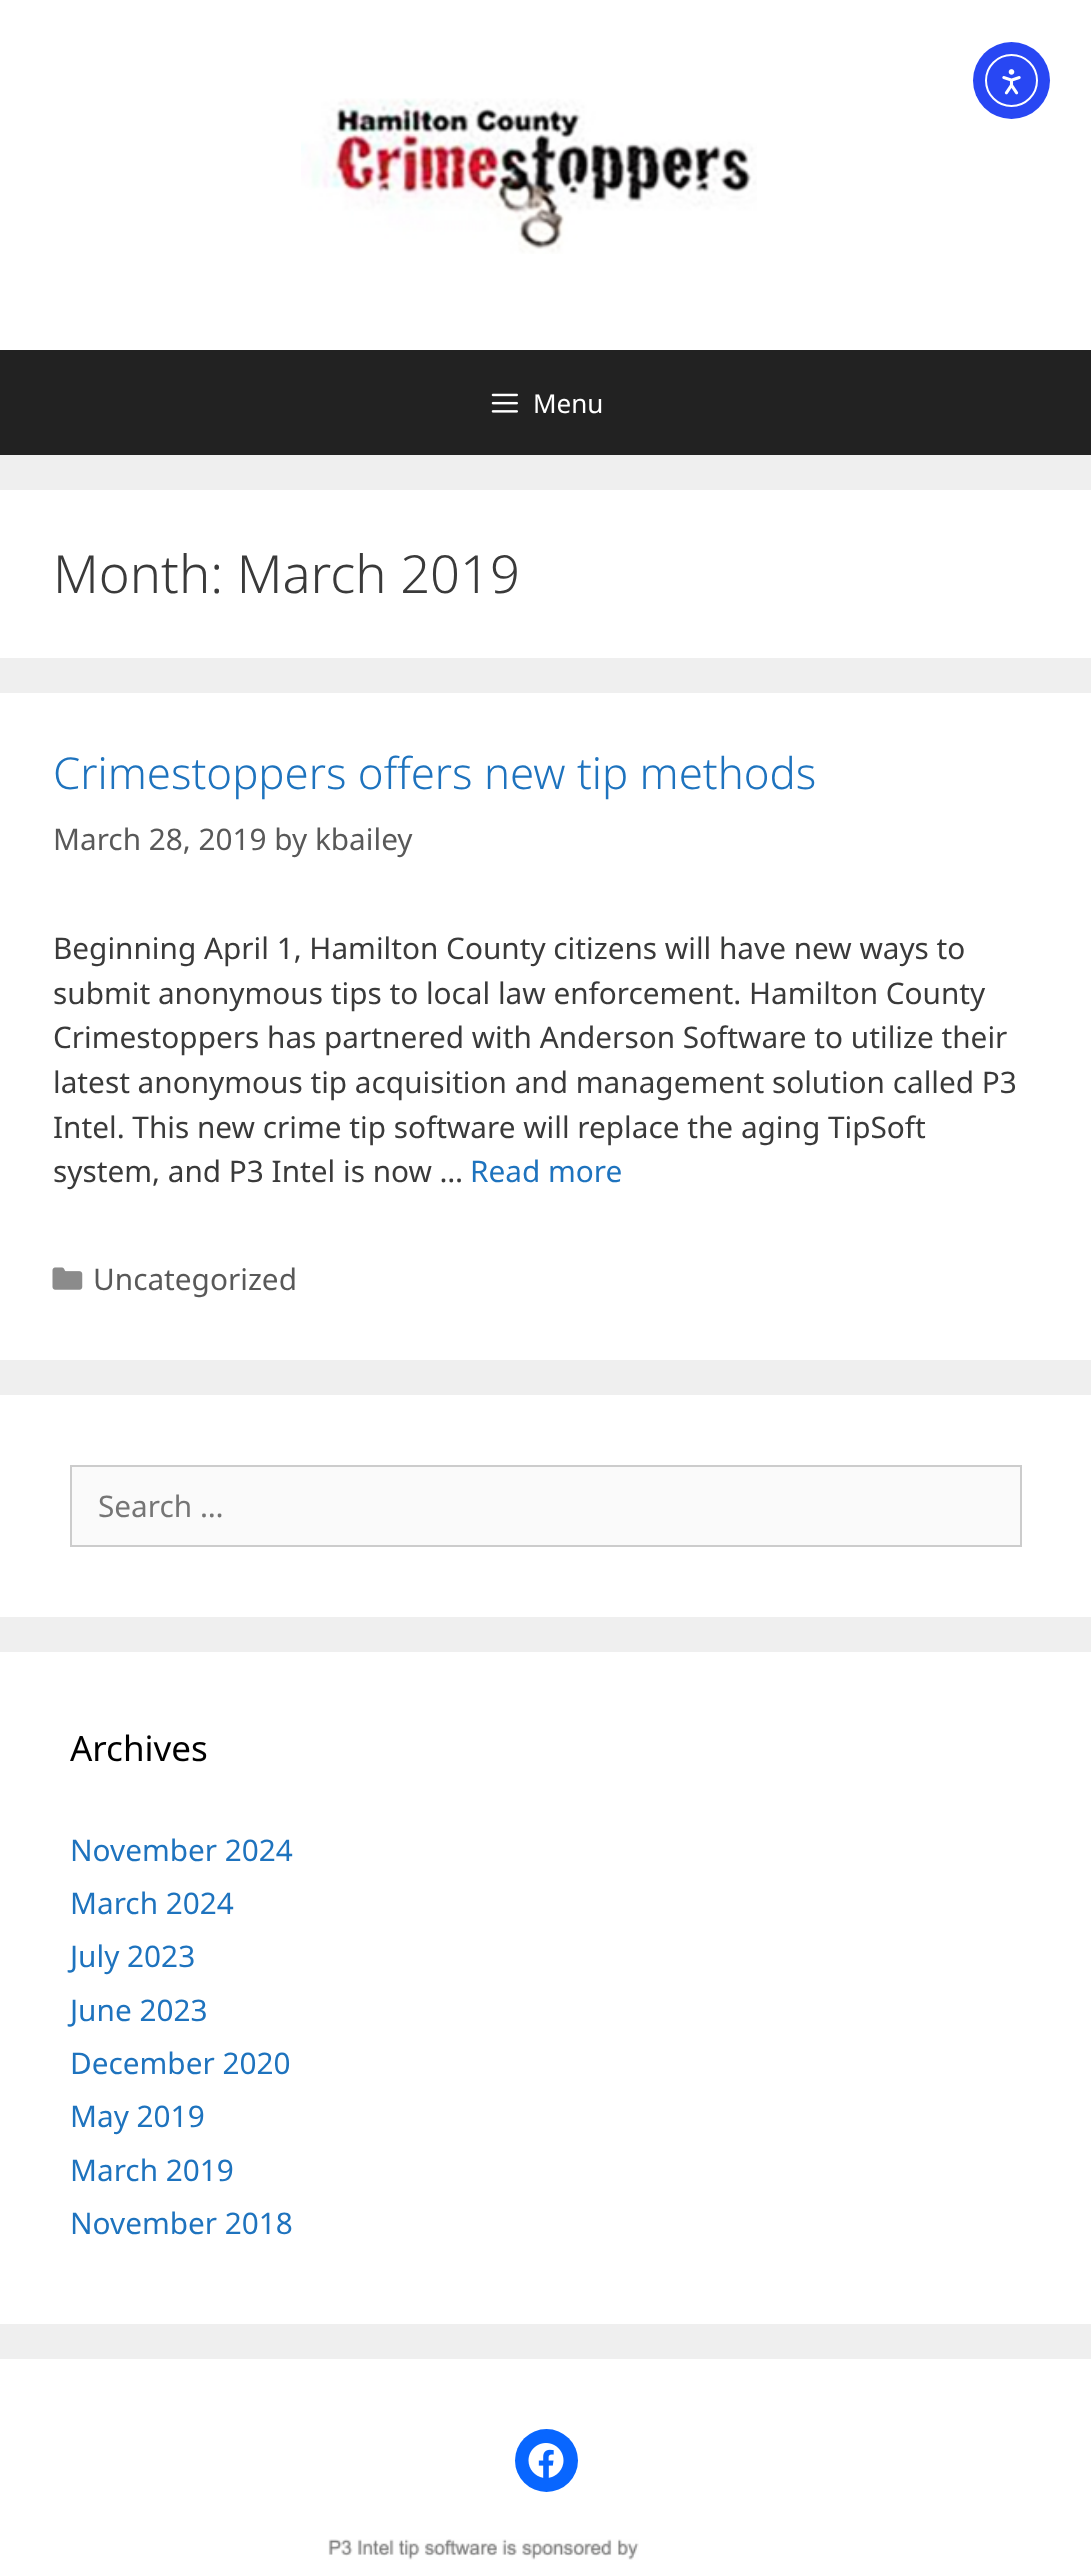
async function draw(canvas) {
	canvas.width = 1091;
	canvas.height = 2574;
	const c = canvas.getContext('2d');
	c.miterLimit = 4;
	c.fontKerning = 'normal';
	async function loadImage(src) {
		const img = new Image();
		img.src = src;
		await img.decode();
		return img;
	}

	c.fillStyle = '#efefef';
	c.fillRect(0, 0, 1091, 2574);
	c.fillStyle = '#fff';
	c.fillRect(0, 0, 1091, 350);
	c.drawImage(await loadImage('img1.png'), 301, 98, 456, 156);
	c.fillStyle = '#2847f3';
	c.beginPath();
	c.arc(1011.5, 80.5, 38.5, 0, 2 * Math.PI);
	c.fill();
	c.beginPath();
	c.arc(1011.5, 80.5, 25.5, 0, 2 * Math.PI);
	c.strokeStyle = '#fff';
	c.lineWidth = 2;
	c.stroke();
	c.drawImage(await loadImage('img2.png'), 1002, 69, 19, 26);
	c.fillStyle = '#222';
	c.fillRect(0, 350, 1091, 105);
	c.drawImage(await loadImage('img3.png'), 491, 393, 27, 20);
	c.font = '26px Noto Sans';
	c.fillStyle = '#fff';
	c.fillText('Menu', 533, 413);
	c.fillRect(0, 490, 1091, 168);
	c.font = '300 52.5px Noto Sans';
	c.fillStyle = '#3a3a3a';
	c.fillText('Month: March 2019', 53, 593);
	c.fillStyle = '#fff';
	c.fillRect(0, 693, 1091, 667);
	c.font = '300 43.75px Noto Sans';
	c.fillStyle = '#1e73be';
	c.fillText('Crimestoppers offers new tip methods', 53, 789);
	c.font = '29.75px Noto Sans';
	c.fillStyle = '#595959';
	c.fillText('March 28, 2019 by kbailey', 53, 850);
	c.fillStyle = '#3a3a3a';
	for (const [text, x, y] of [
		['Beginning April 1, Hamilton County citizens will have new ways to', 53, 959],
		['submit anonymous tips to local law enforcement. Hamilton County', 53, 1004],
		['Crimestoppers has partnered with Anderson Software to utilize their', 53, 1048],
		['latest anonymous tip acquisition and management solution called P3', 53, 1093],
		['Intel. This new crime tip software will replace the aging TipSoft', 53, 1138],
		['system, and P3 Intel is now …', 53, 1182],
	]) {
		c.fillText(text, x, y);
	}
	c.fillStyle = '#1e73be';
	c.fillText('Read more', 470, 1182);
	c.drawImage(await loadImage('img4.png'), 52, 1267, 31, 23);
	c.fillStyle = '#595959';
	c.fillText('Uncategorized', 93, 1290);
	c.fillStyle = '#fff';
	c.fillRect(0, 1395, 1091, 222);
	c.fillStyle = '#fafafa';
	c.beginPath();
	c.rect(71, 1466, 950, 80);
	c.fill();
	c.strokeStyle = '#ccc';
	c.stroke();
	c.fillStyle = '#757575';
	c.fillText('Search …', 98, 1517);
	c.fillStyle = '#fff';
	c.fillRect(0, 1652, 1091, 672);
	c.font = '35px Noto Sans';
	c.fillStyle = '#000';
	c.fillText('Archives', 70, 1761);
	c.font = '29.75px Noto Sans';
	c.fillStyle = '#1e73be';
	for (const [text, x, y] of [
		['November 2024', 70, 1861],
		['March 2024', 70, 1914],
		['July 2023', 70, 1967],
		['June 2023', 70, 2021],
		['December 2020', 70, 2074],
		['May 2019', 70, 2127],
		['March 2019', 70, 2181],
		['November 2018', 70, 2234],
	]) {
		c.fillText(text, x, y);
	}
	c.fillStyle = '#fff';
	c.fillRect(0, 2359, 1091, 215);
	c.fillStyle = '#0866ff';
	c.beginPath();
	c.arc(546.5, 2460.5, 31.5, 0, 2 * Math.PI);
	c.fill();
	c.drawImage(await loadImage('img5.png'), 528, 2443, 36, 35);
	c.drawImage(await loadImage('img6.png'), 328, 2539, 311, 21);
}

draw(document.querySelector('canvas'));
